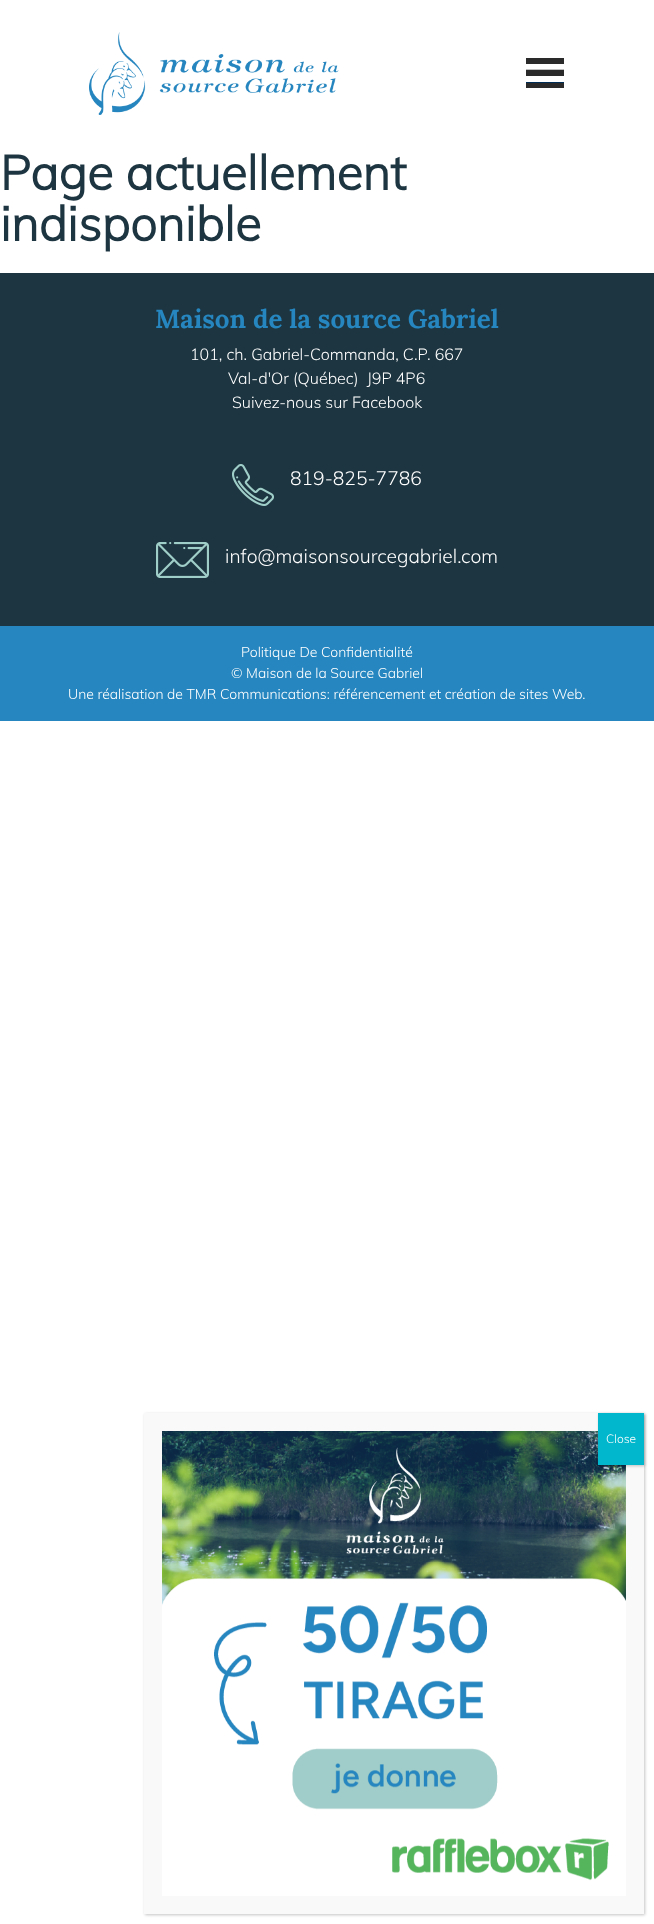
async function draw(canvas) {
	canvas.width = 654;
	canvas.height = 1924;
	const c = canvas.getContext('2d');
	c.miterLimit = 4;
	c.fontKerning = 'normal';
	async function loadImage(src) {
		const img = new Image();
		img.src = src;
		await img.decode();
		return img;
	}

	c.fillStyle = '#fff';
	c.fillRect(0, 0, 654, 1924);
	c.drawImage(await loadImage('img1.png'), 89, 32, 250, 83);
	c.drawImage(await loadImage('img2.png'), 526, 58, 38, 30);
	c.font = 'bold 48px Muli';
	c.fillStyle = '#1d3540';
	c.fillText('Page actuellement', 0, 190);
	c.fillText('indisponible', 0, 241);
	c.fillRect(0, 273, 654, 353);
	c.font = 'bold 26px Lora';
	c.fillStyle = '#2686bf';
	c.fillText('Maison de la source Gabriel', 155, 328);
	c.font = '300 16px Muli';
	c.fillStyle = '#fff';
	for (const [text, x, y] of [
		['101, ch. Gabriel-Commanda, C.P. 667', 190, 360],
		['Val-d\'Or (Québec)  J9P 4P6', 228, 384],
		['Suivez-nous sur Facebook', 232, 408],
	]) {
		c.fillText(text, x, y);
	}
	c.drawImage(await loadImage('img3.png'), 232, 464, 42, 42);
	c.font = '300 19.25px Muli';
	c.fillText('819-825-7786', 290, 485);
	c.drawImage(await loadImage('img4.png'), 156, 542, 53, 36);
	c.fillText('info@maisonsourcegabriel.com', 225, 563);
	c.fillStyle = '#2686bf';
	c.fillRect(0, 626, 654, 95);
	c.font = '300 14px Muli';
	c.fillStyle = '#fff';
	for (const [text, x, y] of [
		['Politique De Confidentialité', 241, 657],
		['© Maison de la Source Gabriel', 231, 678],
		['Une réalisation de TMR Communications: référencement et création de sites Web.', 68, 699],
	]) {
		c.fillText(text, x, y);
	}
	c.fillStyle = '#0202023b';
	c.filter = 'blur(1.5px)';
	c.beginPath();
	c.rect(145, 1414, 500, 501);
	c.fill();
	c.filter = 'none';
	c.fillStyle = '#f9f9f9';
	c.fillRect(144, 1413, 500, 501);
	c.drawImage(await loadImage('img5.png'), 162, 1431, 464, 465);
	c.fillStyle = '#0202023b';
	c.filter = 'blur(1.5px)';
	c.beginPath();
	c.rect(599, 1414, 46, 52);
	c.fill();
	c.filter = 'none';
	c.fillStyle = '#00b7cd';
	c.fillRect(598, 1413, 46, 52);
	c.font = '300 12px Muli';
	c.fillStyle = '#fff';
	c.fillText('Close', 606, 1443);
}

draw(document.querySelector('canvas'));
